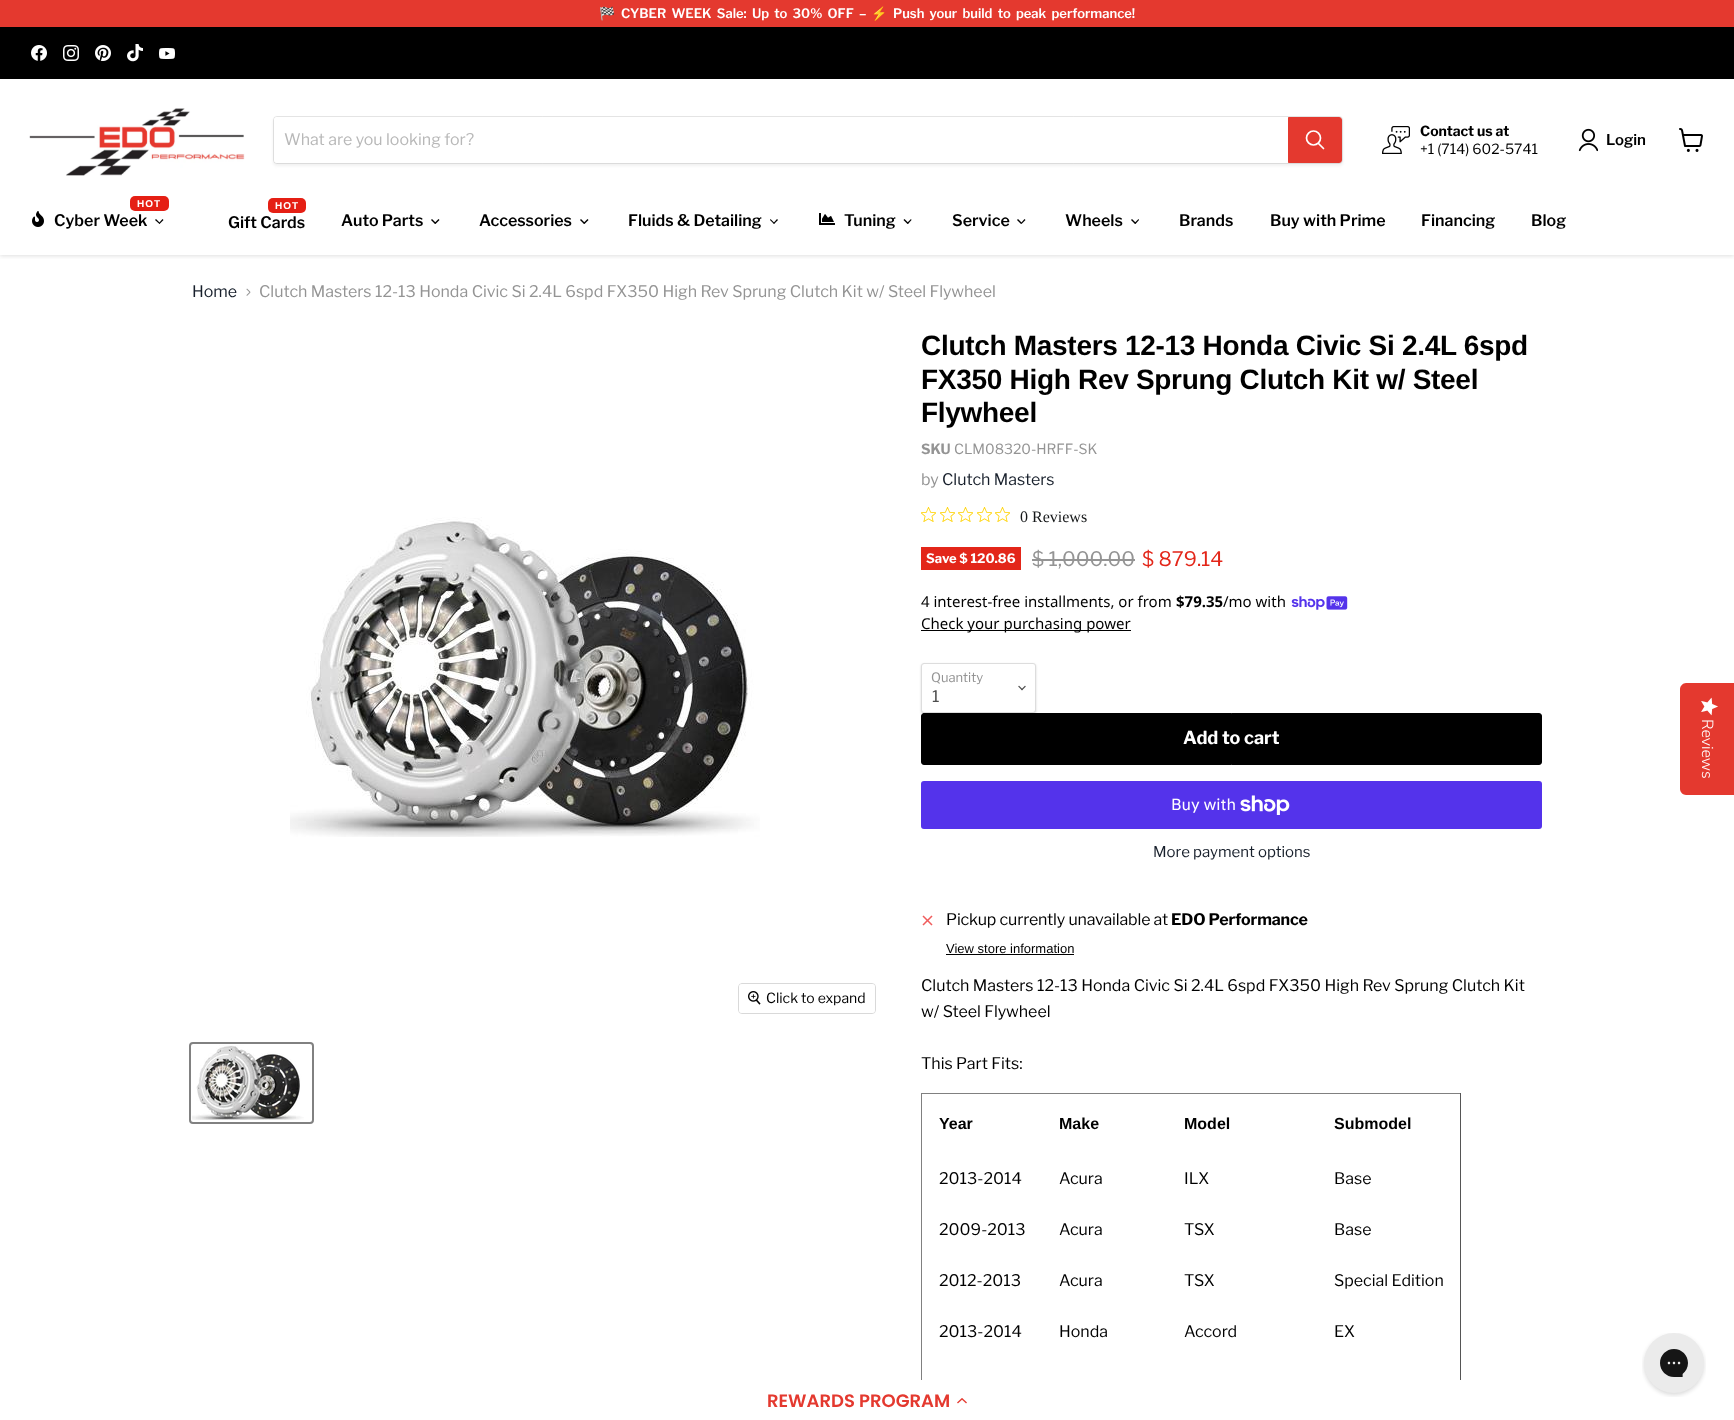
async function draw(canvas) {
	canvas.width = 1734;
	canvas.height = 1420;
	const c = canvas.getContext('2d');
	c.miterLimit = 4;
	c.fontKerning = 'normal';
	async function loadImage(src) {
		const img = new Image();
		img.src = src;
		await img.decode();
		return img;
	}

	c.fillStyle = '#fff';
	c.fillRect(0, 0, 1734, 1420);
	c.fillStyle = '#e4392f';
	c.fillRect(0, 0, 1734, 27);
	c.font = 'bold 13px Noto Color Emoji';
	c.fillStyle = '#fff';
	c.fillText('🏁', 599, 18);
	c.wordSpacing = '2.5px';
	c.font = '600 13px Libre Franklin';
	c.fillText('CYBER WEEK Sale: Up to 30% OFF –', 621, 18);
	c.wordSpacing = '0px';
	c.font = 'bold 13px Noto Color Emoji';
	c.fillText('⚡', 871, 18);
	c.wordSpacing = '2.5px';
	c.font = '600 13px Libre Franklin';
	c.fillText('Push your build to peak performance!', 893, 18);
	c.save();
	c.beginPath();
	c.rect(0, 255, 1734, 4);
	c.clip();
	c.fillStyle = '#80808040';
	c.filter = 'blur(2px)';
	c.beginPath();
	c.rect(0, 81, 1734, 175);
	c.fill();
	c.filter = 'none';
	c.restore();
	c.fillStyle = '#000';
	c.fillRect(0, 27, 1734, 52);
	c.fillStyle = '#fff';
	c.fillRect(0, 79, 1734, 1);
	c.drawImage(await loadImage('img1.png'), 31, 45, 16, 16);
	c.drawImage(await loadImage('img2.png'), 63, 45, 16, 16);
	c.drawImage(await loadImage('img3.png'), 95, 45, 16, 16);
	c.drawImage(await loadImage('img4.png'), 127, 44, 16, 18);
	c.drawImage(await loadImage('img5.png'), 159, 48, 16, 11);
	c.drawImage(await loadImage('img6.png'), 29, 108, 216, 68);
	c.fillStyle = '#8080801c';
	c.filter = 'blur(1.5px)';
	c.beginPath();
	c.roundRect(273, 118, 1070, 48, 4);
	c.fill();
	c.filter = 'none';
	c.beginPath();
	c.roundRect(273.5, 116.5, 1069, 47, 3.5);
	c.strokeStyle = '#80808033';
	c.stroke();
	c.fillStyle = '#fff';
	c.beginPath();
	c.roundRect(274, 117, 1014, 46, [3, 0, 0, 3]);
	c.fill();
	c.wordSpacing = '0px';
	c.font = '16px Libre Franklin';
	c.fillStyle = '#b8b8b8';
	c.fillText('What are you looking for?', 284, 145);
	c.fillStyle = '#e4392f';
	c.beginPath();
	c.roundRect(1288.5, 117.5, 53, 45, [0, 2.5, 2.5, 0]);
	c.fill();
	c.strokeStyle = '#e4392f';
	c.stroke();
	c.beginPath();
	c.moveTo(1323.5, 148.5);
	c.lineTo(1318.5, 143.5);
	c.strokeStyle = '#fff';
	c.lineWidth = 1.7;
	c.lineCap = 'round';
	c.stroke();
	c.beginPath();
	c.arc(1313.5, 138, 7, 0, 2 * Math.PI);
	c.stroke();
	c.drawImage(await loadImage('img7.png'), 1382, 126, 28, 28);
	c.font = 'bold 14px Libre Franklin';
	c.fillStyle = '#000';
	c.fillText('Contact us at', 1420, 136);
	c.font = '14px Libre Franklin';
	c.fillText('+1 (714) 602-5741', 1420, 154);
	c.drawImage(await loadImage('img8.png'), 1578, 128, 20, 24);
	c.font = '600 15px Libre Franklin';
	c.fillText('Login', 1606, 145);
	c.drawImage(await loadImage('img9.png'), 1679, 128, 24, 24);
	c.fillStyle = '#e51f14';
	c.beginPath();
	c.roundRect(130, 196, 39, 15, 5);
	c.fill();
	c.letterSpacing = '1px';
	c.font = 'bold 10px Liberation Sans';
	c.fillStyle = '#fff';
	c.fillText('HOT', 137, 207);
	c.drawImage(await loadImage('img10.png'), 32, 211, 12, 16);
	c.letterSpacing = '0px';
	c.font = '600 16px Libre Franklin';
	c.fillStyle = '#000';
	c.fillText('Cyber Week', 54, 226);
	c.beginPath();
	c.moveTo(162.5, 219);
	c.lineTo(163.5, 220);
	c.lineTo(159.5, 224);
	c.lineTo(159, 223);
	c.closePath();
	c.fill();
	c.beginPath();
	c.moveTo(156, 219);
	c.lineTo(160, 223);
	c.lineTo(159.5, 224);
	c.lineTo(155, 220);
	c.closePath();
	c.fill();
	c.fillStyle = '#e51f14';
	c.beginPath();
	c.roundRect(268, 198, 38, 15, 5);
	c.fill();
	c.letterSpacing = '1px';
	c.font = 'bold 10px Liberation Sans';
	c.fillStyle = '#fff';
	c.fillText('HOT', 275, 209);
	c.letterSpacing = '0px';
	c.font = '600 16px Libre Franklin';
	c.fillStyle = '#000';
	c.fillText('Gift Cards', 228, 228);
	c.fillText('Auto Parts', 341, 226);
	c.beginPath();
	c.moveTo(438.5, 219);
	c.lineTo(439.5, 220);
	c.lineTo(435.5, 224);
	c.lineTo(434.5, 223);
	c.closePath();
	c.fill();
	c.beginPath();
	c.moveTo(432, 219);
	c.lineTo(436, 223);
	c.lineTo(435, 224);
	c.lineTo(431, 220);
	c.closePath();
	c.fill();
	c.fillText('Accessories', 479, 226);
	c.beginPath();
	c.moveTo(587.5, 219);
	c.lineTo(588.5, 220);
	c.lineTo(584.5, 224);
	c.lineTo(583.5, 223);
	c.closePath();
	c.fill();
	c.beginPath();
	c.moveTo(581, 219);
	c.lineTo(585, 223);
	c.lineTo(584, 224);
	c.lineTo(580, 220);
	c.closePath();
	c.fill();
	c.fillText('Fluids & Detailing', 628, 226);
	c.beginPath();
	c.moveTo(777, 219);
	c.lineTo(778, 220);
	c.lineTo(774, 224);
	c.lineTo(773.5, 223);
	c.closePath();
	c.fill();
	c.beginPath();
	c.moveTo(770.5, 219);
	c.lineTo(774.5, 223);
	c.lineTo(774, 224);
	c.lineTo(770, 220);
	c.closePath();
	c.fill();
	c.drawImage(await loadImage('img11.png'), 819, 213, 16, 12);
	c.fillText('Tuning', 844, 226);
	c.beginPath();
	c.moveTo(911, 219);
	c.lineTo(911.5, 220);
	c.lineTo(908, 224);
	c.lineTo(907, 223);
	c.closePath();
	c.fill();
	c.beginPath();
	c.moveTo(904.5, 219);
	c.lineTo(908.5, 223);
	c.lineTo(907.5, 224);
	c.lineTo(903.5, 220);
	c.closePath();
	c.fill();
	c.fillText('Service', 952, 226);
	c.beginPath();
	c.moveTo(1024.5, 219);
	c.lineTo(1025.5, 220);
	c.lineTo(1021.5, 224);
	c.lineTo(1021, 223);
	c.closePath();
	c.fill();
	c.beginPath();
	c.moveTo(1018, 219);
	c.lineTo(1022, 223);
	c.lineTo(1021, 224);
	c.lineTo(1017, 220);
	c.closePath();
	c.fill();
	c.fillText('Wheels', 1065, 226);
	c.beginPath();
	c.moveTo(1138.5, 219);
	c.lineTo(1139, 220);
	c.lineTo(1135.5, 224);
	c.lineTo(1134.5, 223);
	c.closePath();
	c.fill();
	c.beginPath();
	c.moveTo(1132, 219);
	c.lineTo(1136, 223);
	c.lineTo(1135, 224);
	c.lineTo(1131, 220);
	c.closePath();
	c.fill();
	for (const [text, x, y] of [
		['Brands', 1179, 226],
		['Buy with Prime', 1270, 226],
		['Financing', 1421, 226],
		['Blog', 1531, 226],
	]) {
		c.fillText(text, x, y);
	}
	c.font = '16px Libre Franklin';
	c.fillStyle = '#171f2b';
	c.fillText('Home', 192, 297);
	c.drawImage(await loadImage('img12.png'), 246, 288, 5, 8);
	c.fillStyle = '#949494';
	c.fillText('Clutch Masters 12-13 Honda Civic Si 2.4L 6spd FX350 High Rev Sprung Clutch Kit w/ Steel Flywheel', 259, 297);
	c.drawImage(await loadImage('img13.png'), 290, 517, 470, 320);
	c.beginPath();
	c.roundRect(738.5, 983.5, 137, 30, 3.5);
	c.strokeStyle = '#d9d9d9';
	c.lineWidth = 1;
	c.stroke();
	c.fillStyle = '#ffffffe6';
	c.beginPath();
	c.roundRect(739, 984, 136, 29, 3);
	c.fill();
	c.drawImage(await loadImage('img14.png'), 748, 991, 13, 14);
	c.font = '14px Libre Franklin';
	c.fillStyle = '#000';
	c.fillText('Click to expand', 766, 1003);
	c.beginPath();
	c.roundRect(190, 1043, 123, 80, 3);
	c.strokeStyle = '#818181';
	c.lineWidth = 2;
	c.stroke();
	c.drawImage(await loadImage('img15.png'), 192, 1045, 112, 75);
	c.letterSpacing = '-0.3px';
	c.font = 'bold 28px Arimo';
	for (const [text, x, y] of [
		['Clutch Masters 12-13 Honda Civic Si 2.4L 6spd', 921, 355],
		['FX350 High Rev Sprung Clutch Kit w/ Steel', 921, 389],
		['Flywheel', 921, 422],
	]) {
		c.fillText(text, x, y);
	}
	c.letterSpacing = '0px';
	c.font = 'bold 14px Libre Franklin';
	c.fillStyle = '#949494';
	c.fillText('SKU', 921, 454);
	c.font = '14px Libre Franklin';
	c.fillText('CLM08320-HRFF-SK', 954, 454);
	c.font = '16px Libre Franklin';
	c.fillText('by', 921, 485);
	c.fillStyle = '#171f2b';
	c.fillText('Clutch Masters', 942, 485);
	c.drawImage(await loadImage('img16.png'), 921, 507, 15, 15);
	c.drawImage(await loadImage('img16.png'), 940, 507, 15, 15);
	c.drawImage(await loadImage('img16.png'), 958, 507, 15, 15);
	c.drawImage(await loadImage('img16.png'), 977, 507, 15, 15);
	c.drawImage(await loadImage('img16.png'), 995, 507, 15, 15);
	c.font = '16px Liberation Serif';
	c.fillStyle = '#151718';
	c.fillText('0 Reviews', 1020, 522);
	c.fillStyle = '#e32619';
	c.fillRect(921, 547, 100, 23);
	c.font = 'bold 13px Libre Franklin';
	c.fillStyle = '#fff';
	c.fillText('Save $ 120.86', 926, 563);
	c.font = '20px Libre Franklin';
	c.fillStyle = '#949494';
	c.fillText('$ 1,000.00', 1032, 566);
	c.fillRect(1032, 559, 103, 2);
	c.fillStyle = '#e32619';
	c.fillText('$ 879.14', 1142, 566);
	c.font = '15px Noto Sans';
	c.fillStyle = '#000';
	c.fillText('4 interest-free installments, or from', 921, 607);
	c.font = 'bold 15px Noto Sans';
	c.fillText('$79.35', 1176, 607);
	c.font = '15px Noto Sans';
	c.fillText('/mo with', 1223, 607);
	c.drawImage(await loadImage('img17.png'), 1291, 596, 57, 14);
	c.fillRect(921, 630, 210, 1);
	c.fillText('Check your purchasing power', 921, 629);
	c.beginPath();
	c.roundRect(921.5, 713.5, 620, 51, 2.5);
	c.fill();
	c.strokeStyle = '#000';
	c.lineWidth = 1;
	c.stroke();
	c.fillStyle = '#00000026';
	c.filter = 'blur(1px)';
	c.beginPath();
	c.roundRect(921, 664, 115, 50, 3);
	c.fill();
	c.filter = 'none';
	c.fillStyle = '#fff';
	c.beginPath();
	c.roundRect(921.5, 663.5, 114, 49, 2.5);
	c.fill();
	c.strokeStyle = '#ddd';
	c.stroke();
	c.font = '13px Libre Franklin';
	c.fillStyle = '#949494';
	c.fillText('Quantity', 931, 682);
	c.drawImage(await loadImage('img18.png'), 1018, 685, 8, 6);
	c.font = '16px Libre Franklin';
	c.fillStyle = '#4d4d4d';
	c.fillText('1', 932, 702);
	c.font = 'bold 18px Libre Franklin';
	c.fillStyle = '#fff';
	c.fillText('Add to cart', 1183, 744);
	c.fillStyle = '#5433eb';
	c.beginPath();
	c.roundRect(921, 781, 621, 48, 3);
	c.fill();
	c.font = '16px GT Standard';
	c.fillStyle = '#fff';
	c.fillText('Buy with', 1171, 810);
	c.drawImage(await loadImage('img19.png'), 1240, 795, 50, 20);
	c.font = '15px Libre Franklin';
	c.fillStyle = '#171f2b';
	c.fillText('More payment options', 1153, 857);
	c.drawImage(await loadImage('img20.png'), 922, 915, 11, 11);
	c.letterSpacing = '-0.15px';
	c.font = '16px Libre Franklin';
	c.fillStyle = '#000';
	c.fillText('Pickup currently unavailable at', 946, 925);
	c.font = 'bold 16px Libre Franklin';
	c.fillText('EDO Performance', 1171, 925);
	c.letterSpacing = '0px';
	c.font = '13px Liberation Sans';
	c.fillText('View store information', 946, 953);
	c.fillRect(946, 954, 128, 1);
	c.font = '16px Libre Franklin';
	for (const [text, x, y] of [
		['Clutch Masters 12-13 Honda Civic Si 2.4L 6spd FX350 High Rev Sprung Clutch Kit', 921, 991],
		['w/ Steel Flywheel', 921, 1017],
		['This Part Fits:', 921, 1069],
	]) {
		c.fillText(text, x, y);
	}
	for (const [x, y, w, h, color] of [
		[921, 1093, 540, 1, '#808080'],
		[1460, 1093, 1, 287, '#555'],
		[921, 1093, 1, 287, '#808080'],
	]) {
		c.fillStyle = color;
		c.fillRect(x, y, w, h);
	}
	c.font = 'bold 16px Arimo';
	c.fillStyle = '#000';
	for (const [text, x, y] of [
		['Year', 939, 1129],
		['Make', 1059, 1129],
		['Model', 1184, 1129],
		['Submodel', 1334, 1129],
	]) {
		c.fillText(text, x, y);
	}
	c.font = '16px Libre Franklin';
	for (const [text, x, y] of [
		['2013-2014', 939, 1184],
		['Acura', 1059, 1184],
		['ILX', 1184, 1184],
		['Base', 1334, 1184],
		['2009-2013', 939, 1235],
		['Acura', 1059, 1235],
		['TSX', 1184, 1235],
		['Base', 1334, 1235],
		['2012-2013', 939, 1286],
		['Acura', 1059, 1286],
		['TSX', 1184, 1286],
		['Special Edition', 1334, 1286],
		['2013-2014', 939, 1337],
		['Honda', 1059, 1337],
		['Accord', 1184, 1337],
		['EX', 1334, 1337],
	]) {
		c.fillText(text, x, y);
	}
	c.fillStyle = '#e4392f';
	c.beginPath();
	c.moveTo(1734, 683);
	c.lineTo(1734, 795);
	c.lineTo(1686, 795);
	c.bezierCurveTo(1683, 795, 1680, 792, 1680, 789);
	c.lineTo(1680, 689);
	c.bezierCurveTo(1680, 686, 1683, 683, 1686, 683);
	c.closePath();
	c.fill();
	c.drawImage(await loadImage('img21.png'), 1701, 697, 17, 19);
	c.font = '300 16px Nunito Sans';
	c.fillStyle = '#fff';
	c.save();
	c.translate(1702, 719);
	c.rotate(90 * Math.PI / 180);
	c.fillText('Reviews', 0, 0);
	c.restore();
	c.drawImage(await loadImage('img22.png'), 1642, 1333, 64, 64);
	c.font = '600 18px Poppins';
	c.fillStyle = '#e4392f';
	c.fillText('REWARDS PROGRAM', 767, 1407);
	c.drawImage(await loadImage('img23.png'), 957, 1398, 10, 6);
}

draw(document.querySelector('canvas'));
